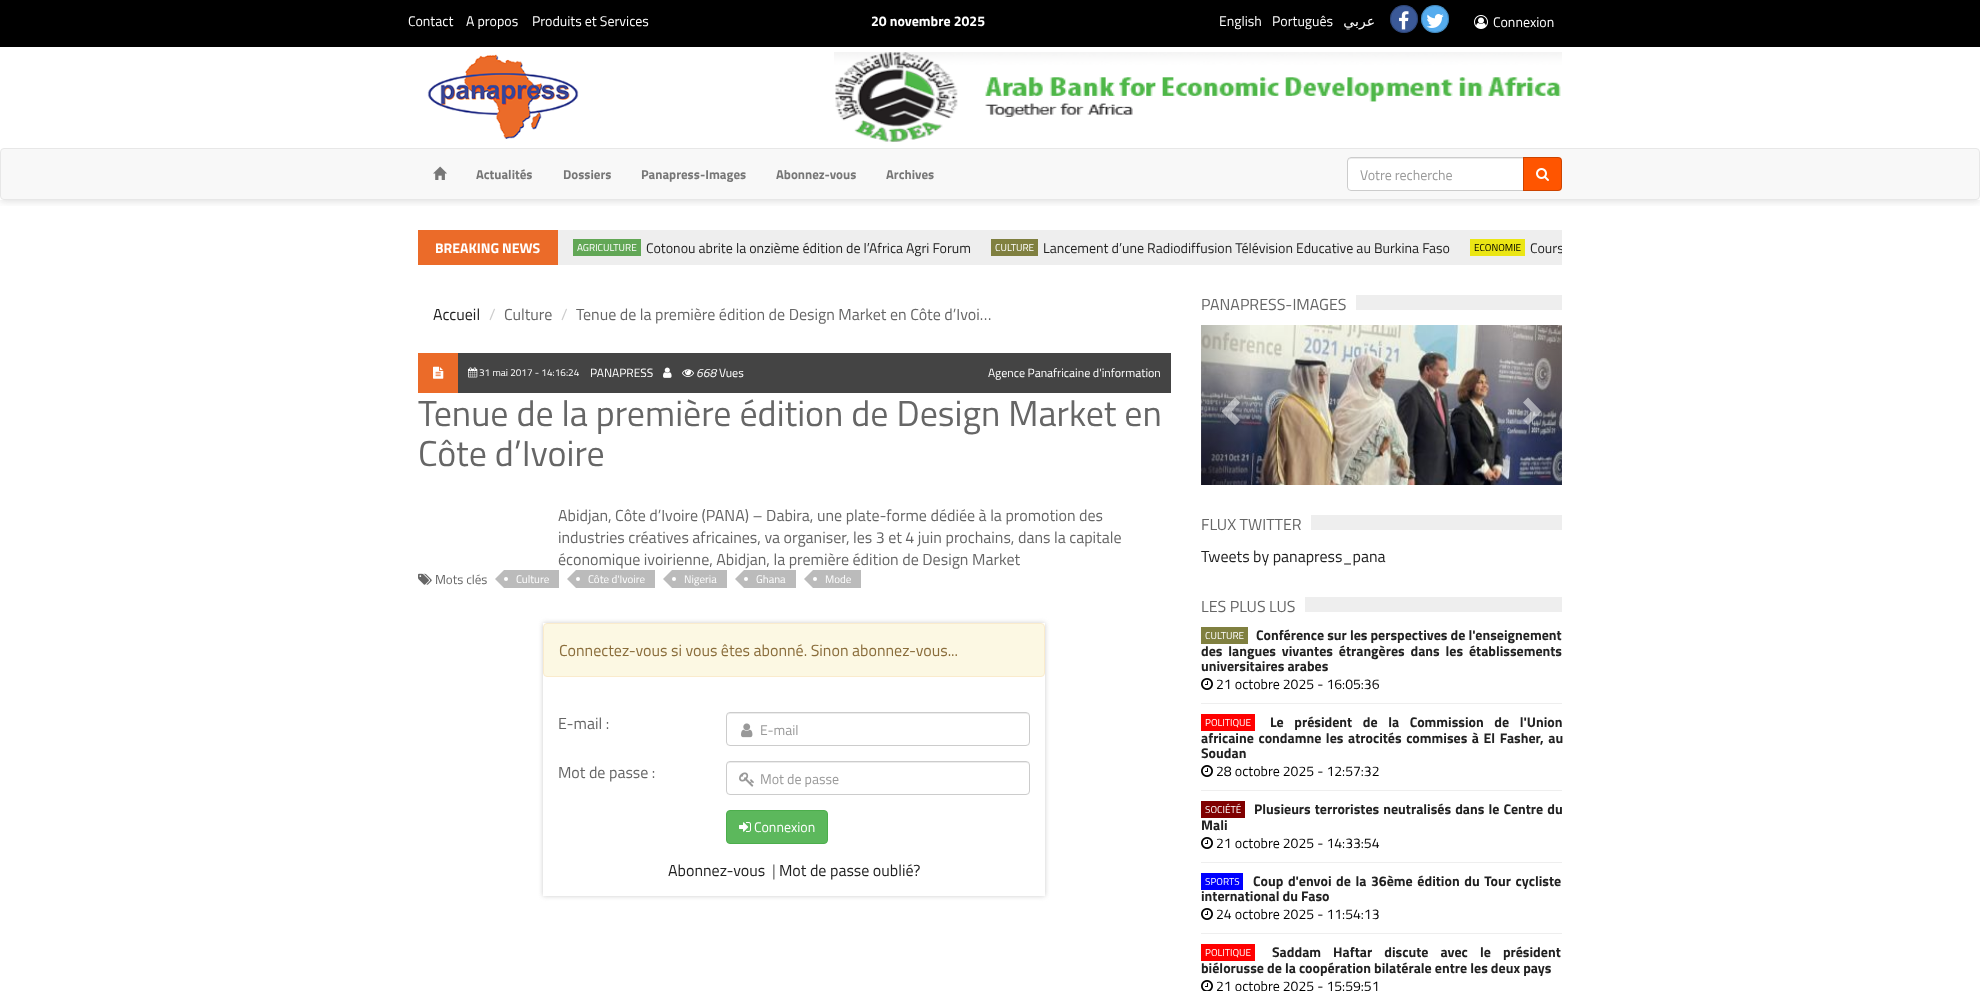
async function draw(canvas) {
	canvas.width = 1980;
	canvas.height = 991;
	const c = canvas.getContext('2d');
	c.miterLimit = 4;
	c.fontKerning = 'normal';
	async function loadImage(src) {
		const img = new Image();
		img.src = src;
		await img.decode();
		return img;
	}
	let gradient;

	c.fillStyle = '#fff';
	c.fillRect(0, 0, 1980, 991);
	c.save();
	c.beginPath();
	c.rect(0, 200, 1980, 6);
	c.clip();
	c.fillStyle = '#22222233';
	c.filter = 'blur(5px)';
	c.beginPath();
	c.rect(0, 0, 1980, 200);
	c.fill();
	c.filter = 'none';
	c.restore();
	c.fillStyle = '#000';
	c.fillRect(0, 0, 1980, 47);
	c.font = '14px Titillium Web';
	c.fillStyle = '#fff';
	for (const [text, x, y] of [
		['Contact', 408, 26],
		['A propos', 466, 26],
		['Produits et Services', 532, 26],
	]) {
		c.fillText(text, x, y);
	}
	c.font = 'bold 14px Titillium Web';
	c.fillText('20 novembre 2025', 871, 26);
	c.font = '14px Titillium Web';
	c.fillText('English', 1219, 26);
	c.fillText('Português', 1272, 26);
	c.direction = 'rtl';
	c.font = '14px DejaVu Sans';
	c.fillText('عربي', 1375, 26);
	c.fillStyle = '#3b5998';
	c.beginPath();
	c.arc(1404, 19, 14, 0, 2 * Math.PI);
	c.fill();
	c.beginPath();
	c.arc(1404, 19, 13.5, 0, 2 * Math.PI);
	c.strokeStyle = '#00000033';
	c.stroke();
	c.drawImage(await loadImage('img1.png'), 1399, 11, 10, 19);
	c.fillStyle = '#55acee';
	c.beginPath();
	c.arc(1435, 19, 14, 0, 2 * Math.PI);
	c.fill();
	c.beginPath();
	c.arc(1435, 19, 13.5, 0, 2 * Math.PI);
	c.stroke();
	c.drawImage(await loadImage('img2.png'), 1426, 14, 18, 14);
	c.drawImage(await loadImage('img3.png'), 1474, 15, 14, 14);
	c.direction = 'ltr';
	c.font = '14px Titillium Web';
	c.fillStyle = '#fff';
	c.fillText('Connexion', 1493, 27);
	c.drawImage(await loadImage('img4.png'), 427, 54, 152, 85);
	c.drawImage(await loadImage('img5.png'), 834, 52, 728, 90);
	c.fillStyle = '#f8f8f8';
	c.beginPath();
	c.roundRect(0.5, 148.5, 1979, 51, 3.5);
	c.fill();
	c.strokeStyle = '#e7e7e7';
	c.stroke();
	c.drawImage(await loadImage('img6.png'), 433, 166, 14, 14);
	c.font = 'bold 13px Titillium Web';
	c.fillStyle = '#777';
	for (const [text, x, y] of [
		['Actualités', 476, 179],
		['Dossiers', 563, 179],
		['Panapress-Images', 641, 179],
		['Abonnez-vous', 776, 179],
		['Archives', 886, 179],
	]) {
		c.fillText(text, x, y);
	}
	c.fillStyle = '#fff';
	c.beginPath();
	c.roundRect(1347, 157, 177, 34, [4, 0, 0, 4]);
	c.fill();
	c.fillStyle = '#ececec';
	c.beginPath();
	c.moveTo(1351, 159);
	c.lineTo(1523, 159);
	c.lineTo(1523, 158);
	c.lineTo(1350, 158);
	c.bezierCurveTo(1348, 159, 1348, 160, 1348, 162);
	c.bezierCurveTo(1348, 160, 1349, 159, 1351, 159);
	c.closePath();
	c.fill();
	c.beginPath();
	c.roundRect(1347.5, 157.5, 176, 33, [3.5, 0, 0, 3.5]);
	c.strokeStyle = '#ccc';
	c.stroke();
	c.font = '14px Titillium Web';
	c.fillStyle = '#999';
	c.fillText('Votre recherche', 1360, 180);
	c.fillStyle = '#f50';
	c.beginPath();
	c.roundRect(1523, 157, 39, 34, [0, 4, 4, 0]);
	c.fill();
	c.beginPath();
	c.roundRect(1523.5, 157.5, 38, 33, [0, 3.5, 3.5, 0]);
	c.strokeStyle = '#00000033';
	c.stroke();
	c.drawImage(await loadImage('img7.png'), 1536, 168, 13, 13);
	c.fillStyle = '#eb6b29';
	c.fillRect(418, 230, 140, 35);
	c.font = 'bold 14px Titillium Web';
	c.fillStyle = '#fff';
	c.fillText('BREAKING NEWS', 435, 253);
	c.fillStyle = '#eee';
	c.fillRect(558, 230, 1004, 35);
	c.fillStyle = '#62a756';
	c.fillRect(573, 239, 68, 17);
	c.font = '10px Titillium Web';
	c.fillStyle = '#fff';
	c.fillText('AGRICULTURE', 577, 251);
	c.font = '14px Titillium Web';
	c.fillStyle = '#222';
	c.fillText('Cotonou abrite la onzième édition de l’Africa Agri Forum', 646, 253);
	c.fillStyle = '#808040';
	c.fillRect(991, 239, 47, 17);
	c.font = '10px Titillium Web';
	c.fillStyle = '#fff';
	c.fillText('CULTURE', 995, 251);
	c.font = '14px Titillium Web';
	c.fillStyle = '#222';
	c.fillText('Lancement d’une Radiodiffusion Télévision Educative au Burkina Faso', 1043, 253);
	c.fillStyle = '#ebe614';
	c.fillRect(1470, 239, 55, 17);
	c.font = '10px Titillium Web';
	c.fillStyle = '#000';
	c.fillText('ECONOMIE', 1474, 251);
	c.save();
	c.beginPath();
	c.rect(1470, 230, 92, 35);
	c.clip();
	c.font = '14px Titillium Web';
	c.fillStyle = '#222';
	c.fillText('Cours', 1530, 253);
	c.restore();
	c.font = '16px Titillium Web';
	c.fillStyle = '#222';
	c.fillText('Accueil', 433, 320);
	c.fillStyle = '#ccc';
	c.fillText('/', 489, 320);
	c.fillStyle = '#666';
	c.fillText('Culture', 504, 320);
	c.fillStyle = '#ccc';
	c.fillText('/', 561, 320);
	c.fillStyle = '#666';
	c.fillText('Tenue de la première édition de Design Market en Côte d’Ivoi…', 576, 320);
	c.fillStyle = '#444';
	c.fillRect(458, 353, 713, 40);
	c.fillStyle = '#eb6b29';
	c.fillRect(418, 353, 40, 40);
	c.drawImage(await loadImage('img8.png'), 433, 366, 11, 13);
	c.drawImage(await loadImage('img9.png'), 468, 367, 10, 11);
	c.font = '10px Titillium Web';
	c.fillStyle = '#fff';
	c.fillText('31 mai 2017 - 14:16:24', 479, 376);
	c.font = '12px Titillium Web';
	c.fillText('PANAPRESS', 590, 377);
	c.drawImage(await loadImage('img10.png'), 663, 367, 9, 11);
	c.drawImage(await loadImage('img11.png'), 682, 369, 12, 8);
	c.font = 'italic 12px Titillium Web';
	c.fillText('668', 696, 377);
	c.font = '12px Titillium Web';
	c.fillText('Vues', 719, 377);
	c.fillText('Agence Panafricaine d\'information', 988, 377);
	c.font = '36px Titillium Web';
	c.fillStyle = '#666';
	c.fillText('Tenue de la première édition de Design Market en', 418, 426);
	c.fillText('Côte d’Ivoire', 418, 466);
	c.font = '16px Titillium Web';
	for (const [text, x, y] of [
		['Abidjan, Côte d’Ivoire (PANA) – Dabira, une plate-forme dédiée à la promotion des', 558, 521],
		['industries créatives africaines, va organiser, les 3 et 4 juin prochains, dans la capitale', 558, 543],
		['économique ivoirienne, Abidjan, la première édition de Design Market', 558, 565],
	]) {
		c.fillText(text, x, y);
	}
	c.drawImage(await loadImage('img12.png'), 418, 573, 14, 12);
	c.font = '13px Titillium Web';
	c.fillText('Mots clés', 435, 584);
	c.fillStyle = '#bbb';
	c.fillRect(504, 570, 55, 18);
	c.beginPath();
	c.moveTo(504, 570);
	c.lineTo(504, 588);
	c.lineTo(495, 579);
	c.closePath();
	c.fill();
	c.fillStyle = '#fff';
	c.beginPath();
	c.arc(506, 579, 2, 0, 2 * Math.PI);
	c.fill();
	c.font = '11px Titillium Web';
	c.fillText('Culture', 516, 583);
	c.fillStyle = '#bbb';
	c.fillRect(576, 570, 79, 18);
	c.beginPath();
	c.moveTo(576, 570);
	c.lineTo(576, 588);
	c.lineTo(567, 579);
	c.closePath();
	c.fill();
	c.fillStyle = '#fff';
	c.beginPath();
	c.arc(578, 579, 2, 0, 2 * Math.PI);
	c.fill();
	c.fillText('Côte d\'Ivoire', 588, 583);
	c.fillStyle = '#bbb';
	c.fillRect(672, 570, 55, 18);
	c.beginPath();
	c.moveTo(672, 570);
	c.lineTo(672, 588);
	c.lineTo(663, 579);
	c.closePath();
	c.fill();
	c.fillStyle = '#fff';
	c.beginPath();
	c.arc(674, 579, 2, 0, 2 * Math.PI);
	c.fill();
	c.fillText('Nigeria', 684, 583);
	c.fillStyle = '#bbb';
	c.fillRect(744, 570, 52, 18);
	c.beginPath();
	c.moveTo(744, 570);
	c.lineTo(744, 588);
	c.lineTo(735, 579);
	c.closePath();
	c.fill();
	c.fillStyle = '#fff';
	c.beginPath();
	c.arc(746, 579, 2, 0, 2 * Math.PI);
	c.fill();
	c.fillText('Ghana', 756, 583);
	c.fillStyle = '#bbb';
	c.fillRect(813, 570, 48, 18);
	c.beginPath();
	c.moveTo(813, 570);
	c.lineTo(813, 588);
	c.lineTo(804, 579);
	c.closePath();
	c.fill();
	c.fillStyle = '#fff';
	c.beginPath();
	c.arc(815, 579, 2, 0, 2 * Math.PI);
	c.fill();
	c.fillText('Mode', 825, 583);
	c.save();
	c.beginPath();
	c.moveTo(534, 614);
	c.lineTo(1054, 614);
	c.lineTo(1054, 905);
	c.lineTo(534, 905);
	c.closePath();
	c.moveTo(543, 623);
	c.lineTo(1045, 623);
	c.lineTo(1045, 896);
	c.lineTo(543, 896);
	c.closePath();
	c.clip('evenodd');
	c.fillStyle = '#ccc';
	c.filter = 'blur(2.5px)';
	c.beginPath();
	c.rect(543, 623, 502, 273);
	c.fill();
	c.filter = 'none';
	c.restore();
	c.fillStyle = '#fcf8e3';
	c.beginPath();
	c.roundRect(543.5, 623.5, 501, 53, 3.5);
	c.fill();
	c.strokeStyle = '#faebcc';
	c.stroke();
	c.font = '16px Titillium Web';
	c.fillStyle = '#8a6d3b';
	c.fillText('Connectez-vous si vous êtes abonné. Sinon abonnez-vous...', 559, 656);
	c.fillStyle = '#666';
	c.fillText('E-mail :', 558, 729);
	c.fillStyle = '#ececec';
	c.beginPath();
	c.moveTo(730, 714);
	c.lineTo(1026, 714);
	c.bezierCurveTo(1028, 714, 1029, 715, 1029, 717);
	c.lineTo(1028, 714);
	c.lineTo(1027, 713);
	c.lineTo(730, 713);
	c.bezierCurveTo(728, 713, 727, 715, 727, 717);
	c.bezierCurveTo(727, 715, 728, 714, 730, 714);
	c.closePath();
	c.fill();
	c.beginPath();
	c.roundRect(726.5, 712.5, 303, 33, 3.5);
	c.strokeStyle = '#ccc';
	c.stroke();
	c.drawImage(await loadImage('img13.png'), 741, 723, 12, 15);
	c.font = '14px Titillium Web';
	c.fillStyle = '#999';
	c.fillText('E-mail', 760, 735);
	c.font = '16px Titillium Web';
	c.fillStyle = '#666';
	c.fillText('Mot de passe :', 558, 778);
	c.fillStyle = '#ececec';
	c.beginPath();
	c.moveTo(730, 763);
	c.lineTo(1026, 763);
	c.bezierCurveTo(1028, 763, 1029, 764, 1029, 766);
	c.lineTo(1028, 763);
	c.lineTo(1027, 762);
	c.lineTo(730, 762);
	c.bezierCurveTo(728, 762, 727, 764, 727, 766);
	c.bezierCurveTo(727, 764, 728, 763, 730, 763);
	c.closePath();
	c.fill();
	c.beginPath();
	c.roundRect(726.5, 761.5, 303, 33, 3.5);
	c.stroke();
	c.drawImage(await loadImage('img14.png'), 739, 772, 15, 15);
	c.font = '14px Titillium Web';
	c.fillStyle = '#999';
	c.fillText('Mot de passe', 760, 784);
	c.fillStyle = '#5cb85c';
	c.beginPath();
	c.roundRect(726.5, 810.5, 101, 33, 3.5);
	c.fill();
	c.strokeStyle = '#4cae4c';
	c.stroke();
	c.drawImage(await loadImage('img15.png'), 739, 822, 12, 10);
	c.fillStyle = '#fff';
	c.fillText('Connexion', 754, 832);
	c.font = '16px Titillium Web';
	c.fillStyle = '#222';
	c.fillText('Abonnez-vous', 668, 876);
	c.fillStyle = '#666';
	c.fillText('|', 772, 876);
	c.fillStyle = '#222';
	c.fillText('Mot de passe oublié?', 779, 876);
	c.fillStyle = '#eee';
	c.fillRect(1356, 295, 206, 15);
	c.fillStyle = '#666';
	c.fillText('PANAPRESS-IMAGES', 1201, 310);
	c.drawImage(await loadImage('img16.png'), 1201, 325, 361, 160);
	gradient = c.createLinearGradient(1201, 405, 1255, 405);
	gradient.addColorStop(0, '#00000040');
	gradient.addColorStop(1, '#00000000');
	c.fillStyle = gradient;
	c.fillRect(1201, 325, 49, 160);
	c.fillStyle = '#ffffff80';
	c.beginPath();
	c.moveTo(1240, 402.5);
	c.lineTo(1231.5, 411.5);
	c.lineTo(1240, 420);
	c.lineTo(1235, 425);
	c.lineTo(1221.5, 411.5);
	c.lineTo(1235, 397.5);
	c.closePath();
	c.fill();
	gradient = c.createLinearGradient(1508, 405, 1562, 405);
	gradient.addColorStop(0, '#00000000');
	gradient.addColorStop(1, '#00000040');
	c.fillStyle = gradient;
	c.fillRect(1513, 325, 49, 160);
	c.fillStyle = '#ffffff80';
	c.beginPath();
	c.moveTo(1541.5, 411.5);
	c.lineTo(1528, 425);
	c.lineTo(1523, 420);
	c.lineTo(1531.5, 411.5);
	c.lineTo(1523, 402.5);
	c.lineTo(1528, 397.5);
	c.closePath();
	c.fill();
	c.fillStyle = '#eee';
	c.fillRect(1311, 515, 251, 15);
	c.fillStyle = '#666';
	c.fillText('FLUX TWITTER', 1201, 530);
	c.fillStyle = '#222';
	c.fillText('Tweets by panapress_pana', 1201, 562);
	c.fillStyle = '#eee';
	c.fillRect(1305, 597, 257, 15);
	c.fillStyle = '#666';
	c.fillText('LES PLUS LUS', 1201, 612);
	c.fillStyle = '#eee';
	c.fillRect(1201, 703, 361, 1);
	c.fillStyle = '#808040';
	c.fillRect(1201, 627, 47, 17);
	c.font = '10px Titillium Web';
	c.fillStyle = '#fff';
	c.fillText('CULTURE', 1205, 639);
	c.font = 'bold 14px Titillium Web';
	c.fillStyle = '#222';
	c.fillText('Conférence sur les perspectives de l\'enseignement', 1256, 640);
	c.wordSpacing = '2.75px';
	c.fillText('des langues vivantes étrangères dans les établissements', 1201, 656);
	c.wordSpacing = '0px';
	c.fillText('universitaires arabes', 1201, 671);
	c.drawImage(await loadImage('img17.png'), 1201, 678, 12, 12);
	c.font = '14px Titillium Web';
	c.fillStyle = '#000';
	c.fillText('21 octobre 2025 - 16:05:36', 1216, 689);
	c.fillStyle = '#eee';
	c.fillRect(1201, 790, 361, 1);
	c.fillStyle = '#f00';
	c.fillRect(1201, 714, 54, 17);
	c.font = '10px Titillium Web';
	c.fillStyle = '#fff';
	c.fillText('POLITIQUE', 1205, 726);
	c.wordSpacing = '7.5px';
	c.font = 'bold 14px Titillium Web';
	c.fillStyle = '#222';
	c.fillText('Le président de la Commission de l\'Union', 1270, 727);
	c.wordSpacing = '1.5px';
	c.fillText('africaine condamne les atrocités commises à El Fasher, au', 1201, 743);
	c.wordSpacing = '0px';
	c.fillText('Soudan', 1201, 758);
	c.drawImage(await loadImage('img17.png'), 1201, 765, 12, 12);
	c.font = '14px Titillium Web';
	c.fillStyle = '#000';
	c.fillText('28 octobre 2025 - 12:57:32', 1216, 776);
	c.fillStyle = '#eee';
	c.fillRect(1201, 862, 361, 1);
	c.fillStyle = '#800000';
	c.fillRect(1201, 801, 44, 17);
	c.font = '10px Titillium Web';
	c.fillStyle = '#fff';
	c.fillText('SOCIÉTÉ', 1205, 813);
	c.wordSpacing = '1px';
	c.font = 'bold 14px Titillium Web';
	c.fillStyle = '#222';
	c.fillText('Plusieurs terroristes neutralisés dans le Centre du', 1254, 814);
	c.wordSpacing = '0px';
	c.fillText('Mali', 1201, 830);
	c.drawImage(await loadImage('img17.png'), 1201, 837, 12, 12);
	c.font = '14px Titillium Web';
	c.fillStyle = '#000';
	c.fillText('21 octobre 2025 - 14:33:54', 1216, 848);
	c.fillStyle = '#eee';
	c.fillRect(1201, 933, 361, 1);
	c.fillStyle = '#00f';
	c.fillRect(1201, 873, 42, 17);
	c.font = '10px Titillium Web';
	c.fillStyle = '#fff';
	c.fillText('SPORTS', 1205, 885);
	c.wordSpacing = '1.5px';
	c.font = 'bold 14px Titillium Web';
	c.fillStyle = '#222';
	c.fillText('Coup d\'envoi de la 36ème édition du Tour cycliste', 1253, 886);
	c.wordSpacing = '0px';
	c.fillText('international du Faso', 1201, 901);
	c.drawImage(await loadImage('img17.png'), 1201, 908, 12, 12);
	c.font = '14px Titillium Web';
	c.fillStyle = '#000';
	c.fillText('24 octobre 2025 - 11:54:13', 1216, 919);
	c.fillStyle = '#f00';
	c.fillRect(1201, 944, 54, 17);
	c.font = '10px Titillium Web';
	c.fillStyle = '#fff';
	c.fillText('POLITIQUE', 1205, 956);
	c.wordSpacing = '9px';
	c.font = 'bold 14px Titillium Web';
	c.fillStyle = '#222';
	c.fillText('Saddam Haftar discute avec le président', 1272, 957);
	c.wordSpacing = '0px';
	c.fillText('biélorusse de la coopération bilatérale entre les deux pays', 1201, 973);
	c.drawImage(await loadImage('img18.png'), 1201, 980, 12, 11);
	c.font = '14px Titillium Web';
	c.fillStyle = '#000';
	c.fillText('21 octobre 2025 - 15:59:51', 1216, 991);
}

draw(document.querySelector('canvas'));
